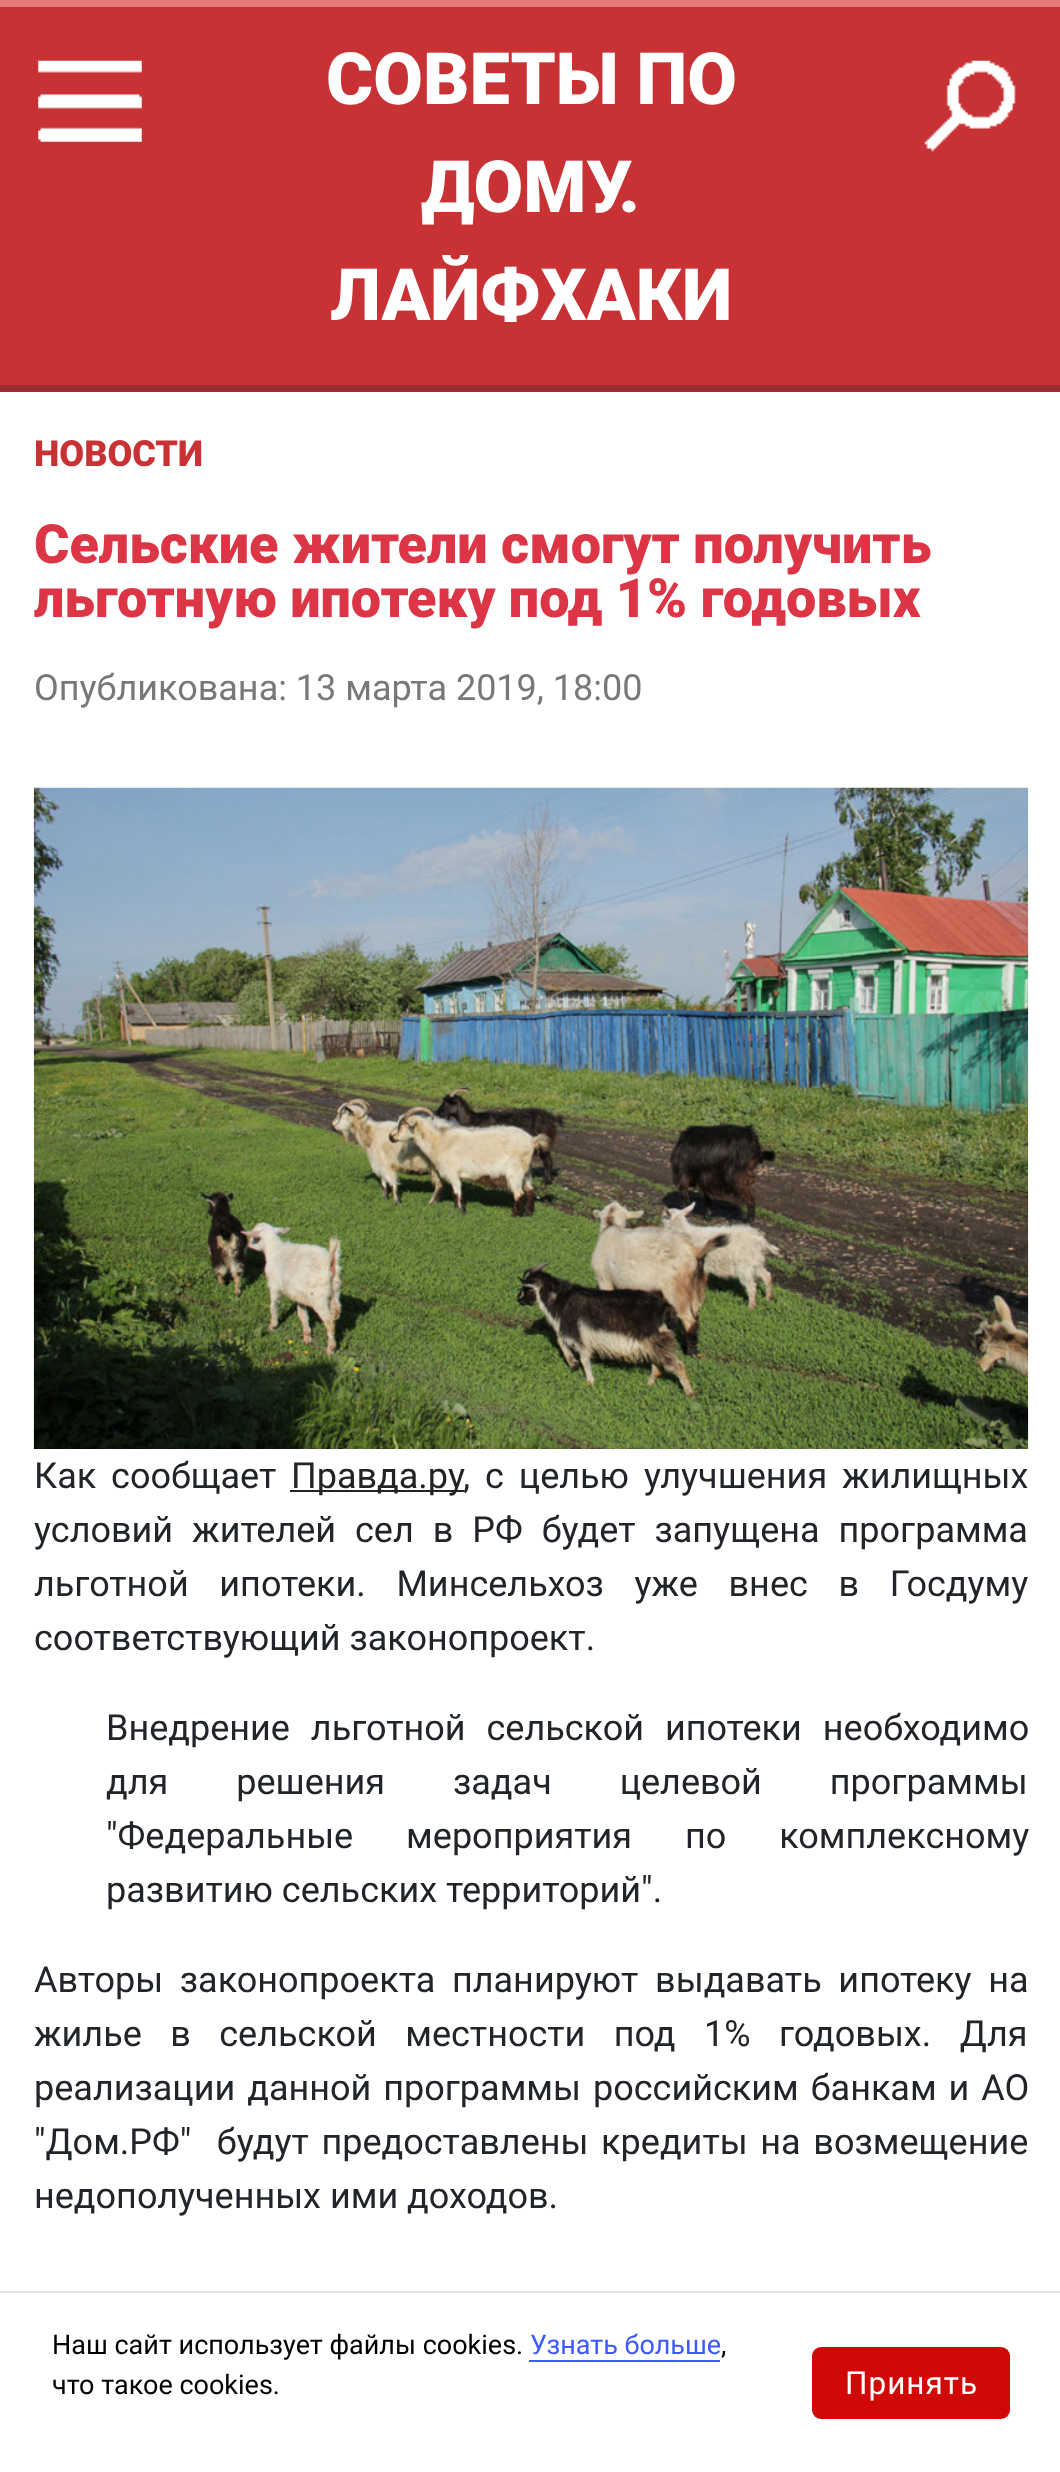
async function draw(canvas) {
	canvas.width = 1060;
	canvas.height = 2472;
	const c = canvas.getContext('2d');
	c.miterLimit = 4;
	c.fontKerning = 'normal';
	async function loadImage(src) {
		const img = new Image();
		img.src = src;
		await img.decode();
		return img;
	}

	c.fillStyle = '#fff';
	c.fillRect(0, 0, 1060, 2472);
	for (const [x, y, w, h, color] of [
		[0, 7, 1060, 378, '#c83234'],
		[0, 0, 1060, 7, '#e7797a'],
		[0, 385, 1060, 7, '#9a2d2f'],
	]) {
		c.fillStyle = color;
		c.fillRect(x, y, w, h);
	}
	c.drawImage(await loadImage('img1.png'), 38, 60, 104, 82);
	c.font = '900 72px Roboto';
	c.fillStyle = '#fff';
	for (const [text, x, y] of [
		['СОВЕТЫ ПО', 326, 104],
		['ДОМУ.', 421, 212],
		['ЛАЙФХАКИ', 330, 320],
	]) {
		c.fillText(text, x, y);
	}
	c.drawImage(await loadImage('img2.png'), 924, 60, 92, 92);
	c.font = '900 36px Roboto';
	c.fillStyle = '#c83234';
	c.fillText('НОВОСТИ', 34, 466);
	c.font = '900 54px Roboto';
	c.fillStyle = '#dc3545';
	c.fillText('Сельские жители смогут получить', 34, 563);
	c.fillText('льготную ипотеку под 1% годовых', 34, 617);
	c.font = '36px Roboto';
	c.fillStyle = '#787878';
	c.fillText('Опубликована: 13 марта 2019, 18:00', 34, 700);
	c.drawImage(await loadImage('img3.png'), 33, 787, 996, 662);
	c.wordSpacing = '6px';
	c.fillStyle = '#212529';
	c.fillText('Как сообщает', 34, 1488);
	c.fillStyle = '#232323';
	c.fillRect(290, 1490, 174, 2);
	c.wordSpacing = '0px';
	c.fillText('Правда.ру', 291, 1488);
	c.wordSpacing = '6px';
	c.fillStyle = '#212529';
	c.fillText(', с целью улучшения жилищных', 463, 1488);
	c.wordSpacing = '10px';
	c.fillText('условий жителей сел в РФ будет запущена программа', 34, 1542);
	c.wordSpacing = '21.75px';
	c.fillText('льготной ипотеки. Минсельхоз уже внес в Госдуму', 34, 1596);
	c.wordSpacing = '0px';
	c.fillText('соответствующий законопроект.', 34, 1650);
	c.wordSpacing = '12px';
	c.fillText('Внедрение льготной сельской ипотеки необходимо', 106, 1740);
	c.wordSpacing = '59px';
	c.fillText('для решения задач целевой программы', 106, 1794);
	c.wordSpacing = '44px';
	c.fillText('"Федеральные мероприятия по комплексному', 106, 1848);
	c.wordSpacing = '0px';
	c.fillText('развитию сельских территорий".', 106, 1902);
	c.wordSpacing = '7.75px';
	c.fillText('Авторы законопроекта планируют выдавать ипотеку на', 34, 1992);
	c.wordSpacing = '19.5px';
	c.fillText('жилье в сельской местности под 1% годовых. Для', 34, 2046);
	c.wordSpacing = '3px';
	c.fillText('реализации данной программы российским банкам и АО', 34, 2100);
	c.wordSpacing = '3.75px';
	c.fillText('"Дом.РФ"  будут предоставлены кредиты на возмещение', 34, 2154);
	c.wordSpacing = '0px';
	c.fillText('недополученных ими доходов.', 34, 2208);
	c.fillStyle = '#e5e5e5';
	c.fillRect(0, 2291, 1060, 2);
	c.font = '27px Roboto';
	c.fillStyle = '#000';
	c.fillText('Наш сайт использует файлы cookies.', 52, 2354);
	c.fillStyle = '#3d5afe';
	c.fillText('Узнать больше', 530, 2354);
	c.fillRect(529, 2360, 191, 2);
	c.fillStyle = '#000';
	c.fillText(',', 721, 2354);
	c.fillText('что такое cookies.', 52, 2394);
	c.fillStyle = '#d10906';
	c.beginPath();
	c.roundRect(812, 2347, 198, 72, 9);
	c.fill();
	c.letterSpacing = '1px';
	c.font = '31.5px Roboto';
	c.fillStyle = '#fff';
	c.fillText('Принять', 845, 2394);
}

draw(document.querySelector('canvas'));
